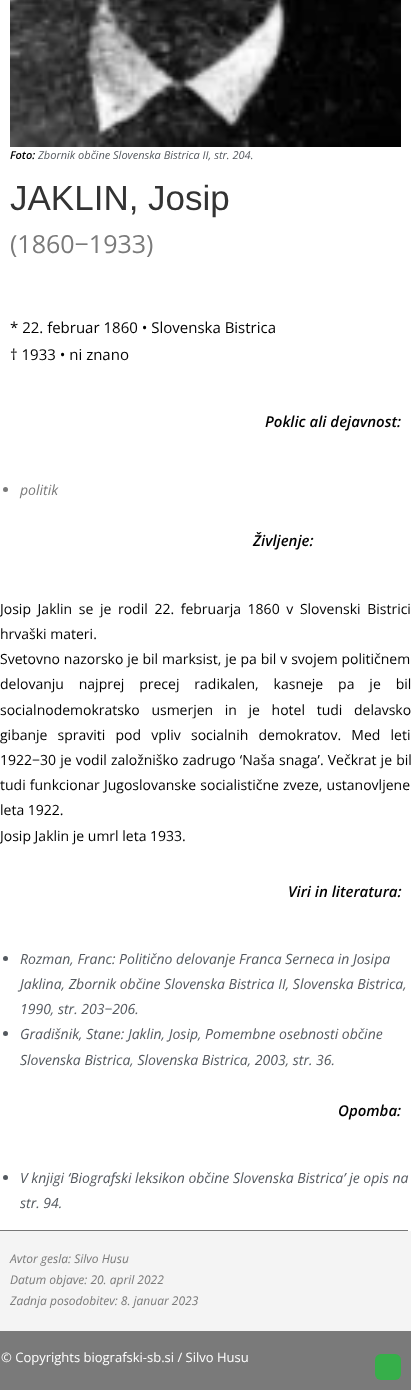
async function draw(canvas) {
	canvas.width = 411;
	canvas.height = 1390;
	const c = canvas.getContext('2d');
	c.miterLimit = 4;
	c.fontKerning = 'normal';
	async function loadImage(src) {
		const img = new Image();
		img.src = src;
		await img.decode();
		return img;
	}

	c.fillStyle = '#fff';
	c.fillRect(0, 0, 411, 1390);
	c.drawImage(await loadImage('img1.png'), 10, 0, 391, 147);
	c.font = 'italic 600 11px Open Sans';
	c.fillStyle = '#000';
	c.fillText('Foto:', 10, 159);
	c.font = 'italic 11px Open Sans';
	c.fillStyle = '#54595f';
	c.fillText('Zbornik občine Slovenska Bistrica II, str. 204.', 38, 159);
	c.font = '35px Liberation Sans';
	c.fillStyle = '#333';
	c.fillText('JAKLIN, Josip', 10, 210);
	c.font = '25px Open Sans';
	c.fillStyle = '#7a7a7a';
	c.fillText('(1860−1933)', 10, 253);
	c.font = '15px Open Sans';
	c.fillStyle = '#000';
	c.fillText('* 22. februar 1860 • Slovenska Bistrica', 10, 333);
	c.fillText('† 1933 • ni znano', 10, 360);
	c.font = 'italic 600 15px Open Sans';
	c.fillText('Poklic ali dejavnost:', 265, 427);
	c.fillStyle = '#7a7a7a';
	c.beginPath();
	c.arc(5.5, 489.5, 2.5, 0, 2 * Math.PI);
	c.fill();
	c.font = 'italic 14px Open Sans';
	c.fillText('politik', 20, 495);
	c.font = 'italic 600 15px Open Sans';
	c.fillStyle = '#000';
	c.fillText('Življenje:', 253, 546);
	c.wordSpacing = '3px';
	c.font = '14px Open Sans';
	c.fillText('Josip Jaklin se je rodil 22. februarja 1860 v Slovenski Bistrici', 0, 614);
	c.wordSpacing = '0px';
	c.fillText('hrvaški materi.', 0, 639);
	c.wordSpacing = '0.25px';
	c.fillText('Svetovno nazorsko je bil marksist, je pa bil v svojem političnem', 0, 664);
	c.wordSpacing = '11.25px';
	c.fillText('delovanju najprej precej radikalen, kasneje pa je bil', 0, 689);
	c.wordSpacing = '8px';
	c.fillText('socialnodemokratsko usmerjen in je hotel tudi delavsko', 0, 715);
	c.wordSpacing = '6.5px';
	c.fillText('gibanje spraviti pod vpliv socialnih demokratov. Med leti', 0, 740);
	c.wordSpacing = '0.5px';
	c.fillText('1922−30 je vodil založniško zadrugo ‘Naša snaga’. Večkrat je bil', 0, 765);
	c.fillText('tudi funkcionar Jugoslovanske socialistične zveze, ustanovljene', 0, 790);
	c.wordSpacing = '0px';
	c.fillText('leta 1922.', 0, 815);
	c.fillText('Josip Jaklin je umrl leta 1933.', 0, 841);
	c.font = 'italic 600 15px Open Sans';
	c.fillText('Viri in literatura:', 288, 897);
	c.fillStyle = '#54595f';
	c.beginPath();
	c.arc(5.5, 958.5, 2.5, 0, 2 * Math.PI);
	c.fill();
	c.font = 'italic 14px Open Sans';
	for (const [text, x, y] of [
		['Rozman, Franc: Politično delovanje Franca Serneca in Josipa', 20, 964],
		['Jaklina, Zbornik občine Slovenska Bistrica II, Slovenska Bistrica,', 20, 989],
		['1990, str. 203−206.', 20, 1014],
	]) {
		c.fillText(text, x, y);
	}
	c.beginPath();
	c.arc(5.5, 1033.5, 2.5, 0, 2 * Math.PI);
	c.fill();
	c.fillText('Gradišnik, Stane: Jaklin, Josip, Pomembne osebnosti občine', 20, 1039);
	c.fillText('Slovenska Bistrica, Slovenska Bistrica, 2003, str. 36.', 20, 1065);
	c.fillStyle = '#777';
	c.fillRect(0, 1230, 408, 1);
	c.font = 'italic 600 15px Open Sans';
	c.fillStyle = '#000';
	c.fillText('Opomba:', 338, 1116);
	c.fillStyle = '#54595f';
	c.beginPath();
	c.arc(5.5, 1177.5, 2.5, 0, 2 * Math.PI);
	c.fill();
	c.font = 'italic 14px Open Sans';
	c.fillText('V knjigi ‘Biografski leksikon občine Slovenska Bistrica’ je opis na', 20, 1183);
	c.fillText('str. 94.', 20, 1208);
	c.fillStyle = '#f4f4f4';
	c.fillRect(0, 1231, 411, 100);
	c.font = 'italic 12px Open Sans';
	c.fillStyle = '#7a7a7a';
	for (const [text, x, y] of [
		['Avtor gesla: Silvo Husu', 10, 1263],
		['Datum objave: 20. april 2022', 10, 1284],
		['Zadnja posodobitev: 8. januar 2023', 10, 1305],
	]) {
		c.fillText(text, x, y);
	}
	c.fillRect(0, 1331, 411, 59);
	c.font = '13px Open Sans';
	c.fillStyle = '#fff';
	c.fillText('© Copyrights biografski-sb.si / Silvo Husu', 1, 1362);
	c.fillStyle = '#36af4a';
	c.beginPath();
	c.roundRect(375, 1354, 26, 26, 6);
	c.fill();
}

draw(document.querySelector('canvas'));
